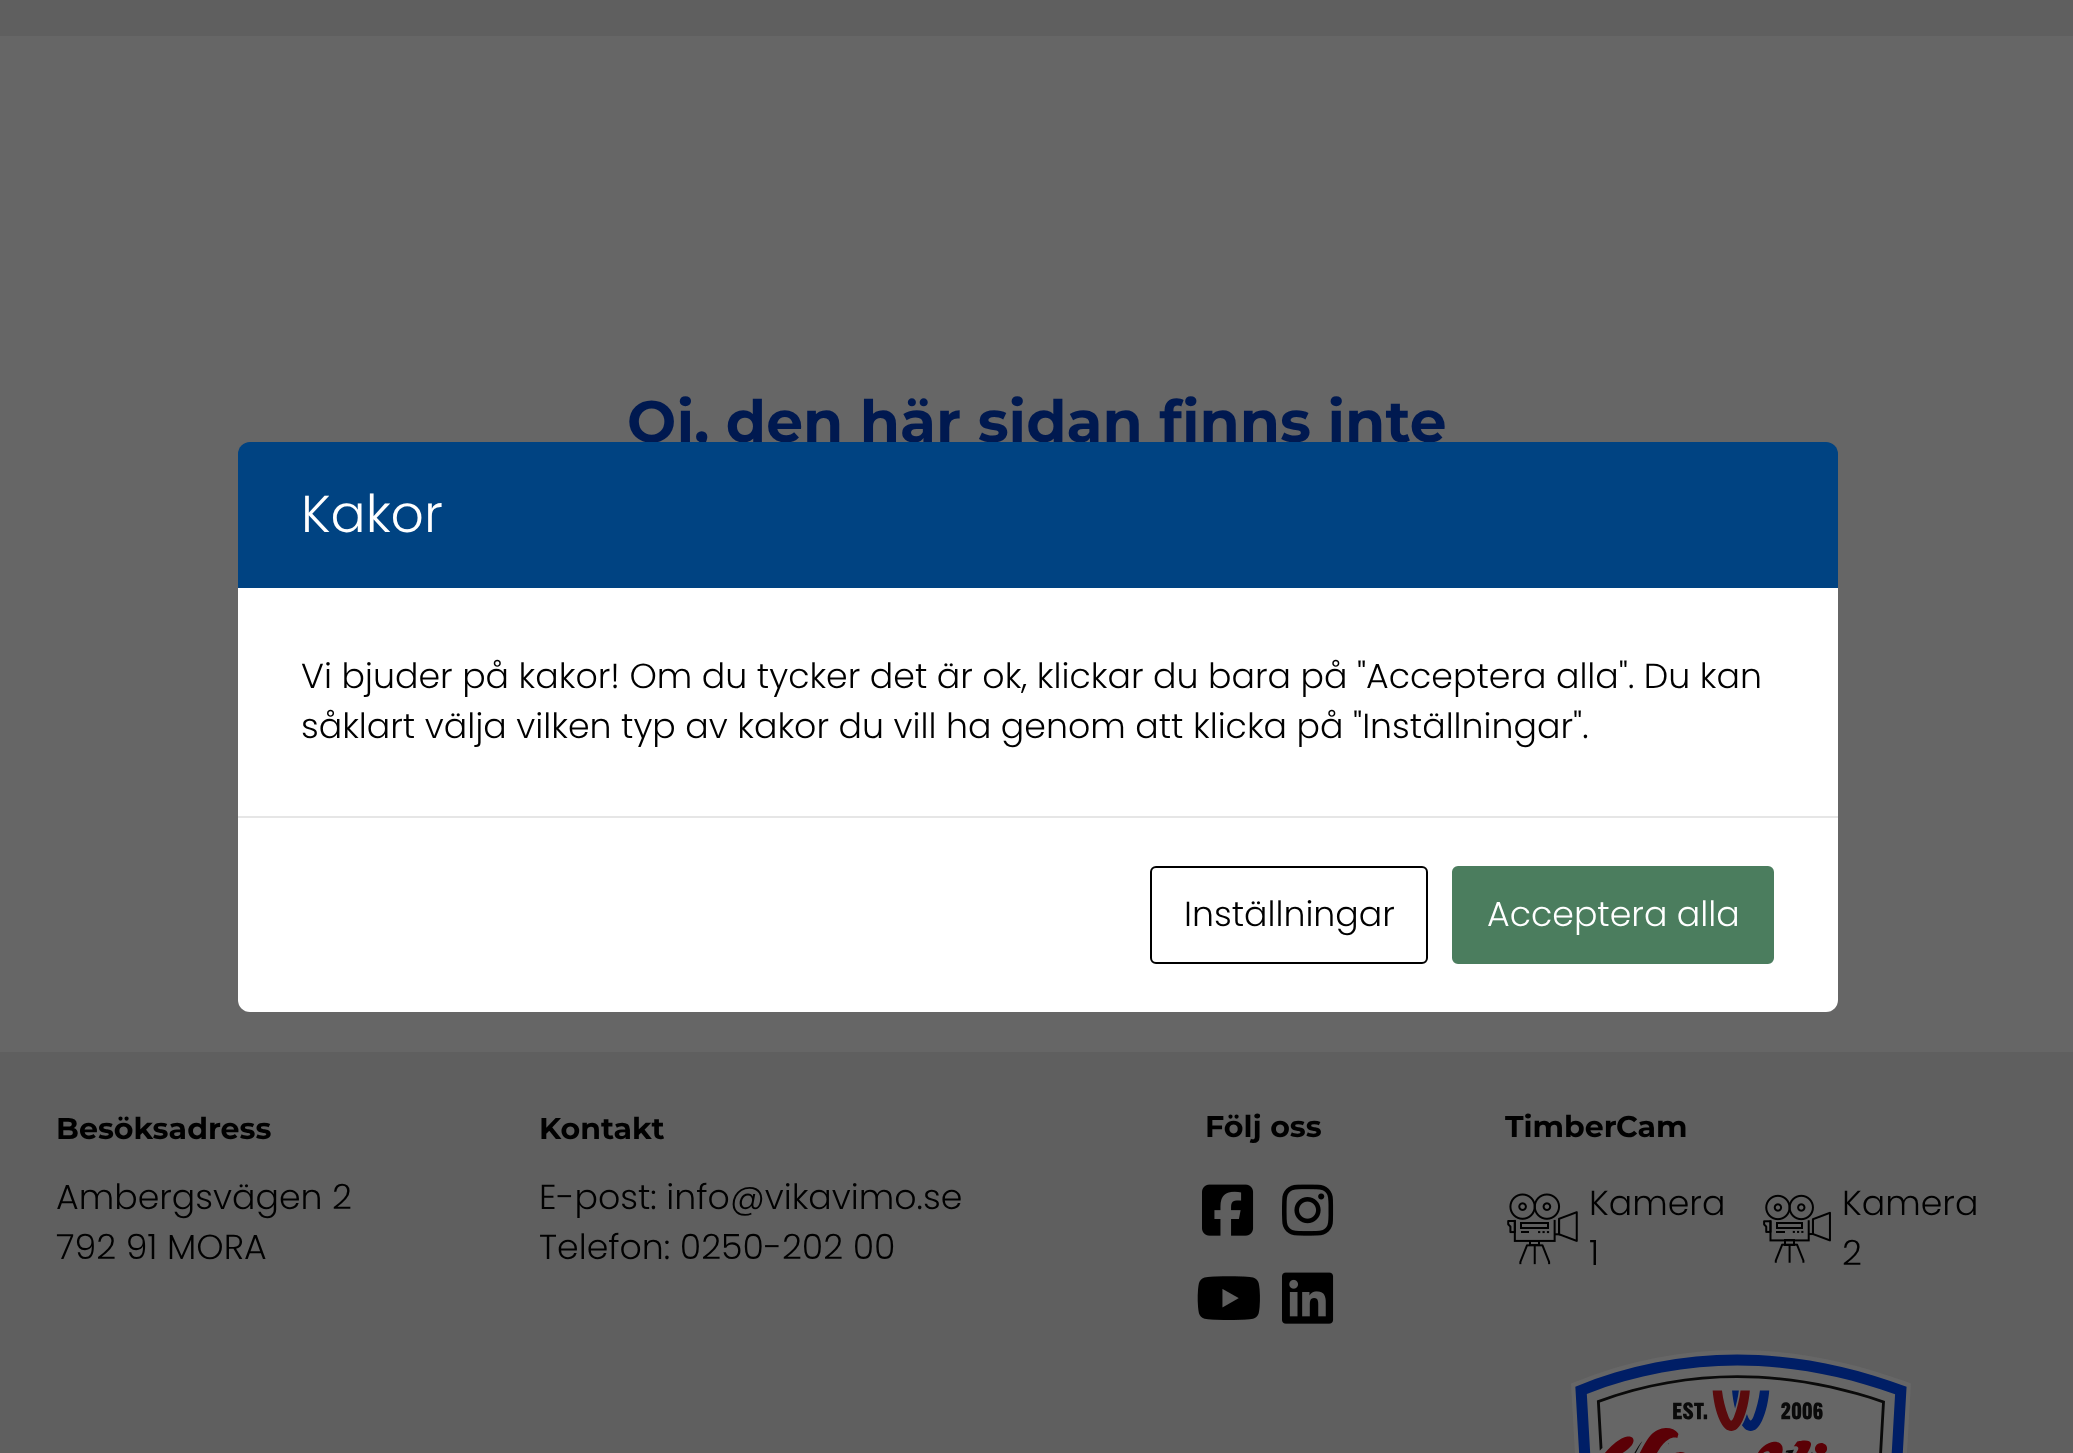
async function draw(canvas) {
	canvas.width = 2073;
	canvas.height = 1453;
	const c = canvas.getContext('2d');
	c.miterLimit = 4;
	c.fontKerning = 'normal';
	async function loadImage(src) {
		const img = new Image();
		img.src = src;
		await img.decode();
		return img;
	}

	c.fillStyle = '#666';
	c.fillRect(0, 0, 2073, 1453);
	c.fillStyle = '#5f5f5f';
	c.fillRect(0, 0, 2073, 36);
	c.font = 'bold 58.3px Montserrat';
	c.fillStyle = '#001950';
	c.fillText('Oj, den här sidan finns inte', 627, 442);
	c.fillStyle = '#004382';
	c.beginPath();
	c.roundRect(238, 442, 1600, 146, [12, 12, 0, 0]);
	c.fill();
	c.font = '300 52px Poppins';
	c.fillStyle = '#fff';
	c.fillText('Kakor', 301, 532);
	c.fillRect(238, 588, 1600, 228);
	c.font = '300 34.75px Poppins';
	c.fillStyle = '#000';
	c.fillText('Vi bjuder på kakor! Om du tycker det är ok, klickar du bara på "Acceptera alla". Du kan', 301, 688);
	c.fillText('såklart välja vilken typ av kakor du vill ha genom att klicka på "Inställningar".', 301, 738);
	c.fillStyle = '#fff';
	c.beginPath();
	c.roundRect(238, 816, 1600, 196, [0, 0, 12, 12]);
	c.fill();
	c.fillStyle = '#e6e6e6';
	c.fillRect(238, 816, 1600, 2);
	c.beginPath();
	c.roundRect(1151, 867, 276, 96, 5);
	c.strokeStyle = '#000';
	c.lineWidth = 2;
	c.stroke();
	c.fillStyle = '#000';
	c.fillText('Inställningar', 1184, 926);
	c.fillStyle = '#4b7d5e';
	c.beginPath();
	c.roundRect(1453, 867, 320, 96, 5);
	c.fill();
	c.strokeStyle = '#4b7d5e';
	c.stroke();
	c.fillStyle = '#fff';
	c.fillText('Acceptera alla', 1487, 926);
	c.fillStyle = '#5f5f5f';
	c.fillRect(0, 1052, 2073, 401);
	c.font = 'bold 30px Montserrat';
	c.fillStyle = '#000';
	c.fillText('Besöksadress', 56, 1139);
	c.font = '300 34.75px Poppins';
	c.fillText('Ambergsvägen 2', 56, 1209);
	c.fillText('792 91 MORA', 56, 1259);
	c.font = 'bold 30px Montserrat';
	c.fillText('Kontakt', 539, 1139);
	c.font = '300 34.75px Poppins';
	c.fillText('E-post: info@vikavimo.se', 539, 1209);
	c.fillText('Telefon: 0250-202 00', 539, 1259);
	c.font = 'bold 30px Montserrat';
	c.fillText('Följ oss', 1205, 1137);
	c.drawImage(await loadImage('img1.png'), 1202, 1184, 52, 52);
	c.drawImage(await loadImage('img2.png'), 1282, 1184, 52, 52);
	c.drawImage(await loadImage('img3.png'), 1197, 1276, 63, 44);
	c.drawImage(await loadImage('img4.png'), 1282, 1272, 52, 52);
	c.fillText('TimberCam', 1505, 1137);
	c.drawImage(await loadImage('img5.png'), 1507, 1193, 71, 72);
	c.font = '300 34.75px Poppins';
	c.fillText('Kamera', 1589, 1215);
	c.fillText('1', 1589, 1265);
	c.drawImage(await loadImage('img6.png'), 1763, 1194, 68, 69);
	c.fillText('Kamera', 1842, 1215);
	c.fillText('2', 1842, 1265);
	c.drawImage(await loadImage('img7.png'), 1571, 1350, 340, 103);
}

draw(document.querySelector('canvas'));
